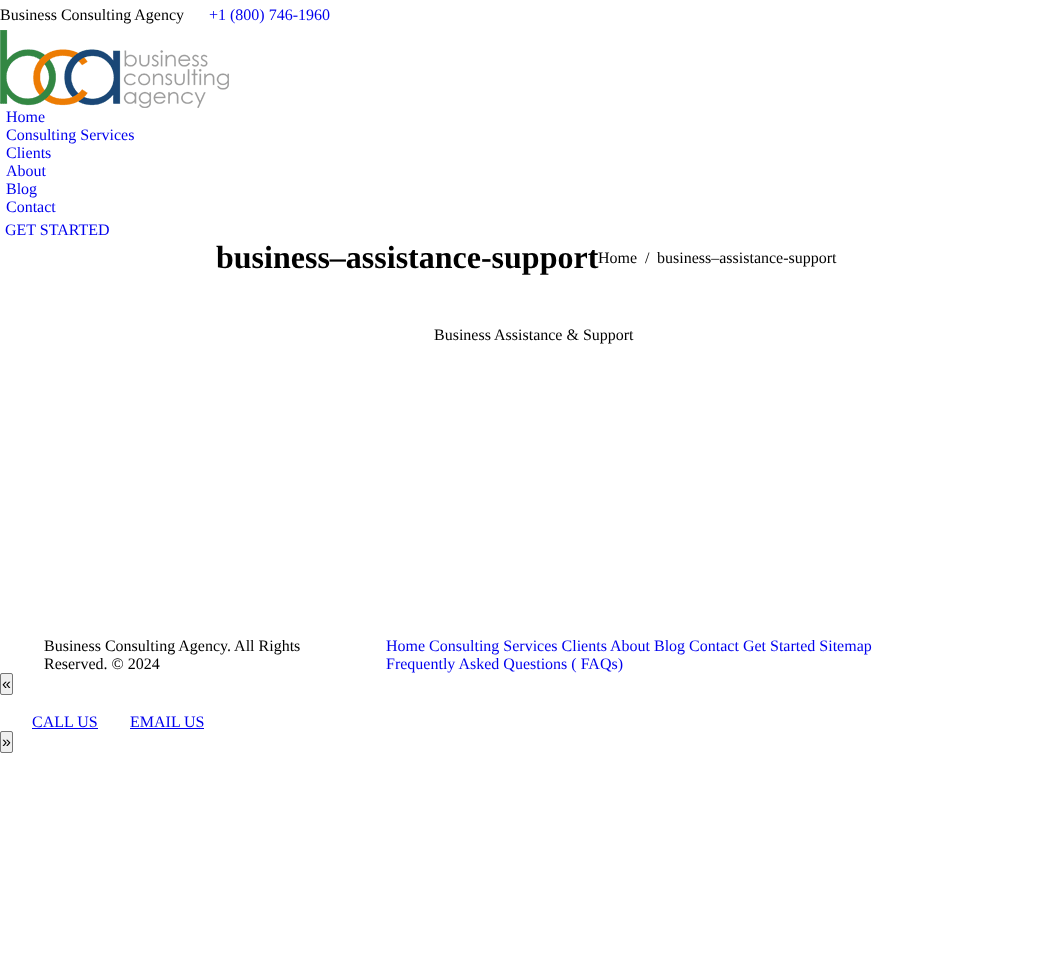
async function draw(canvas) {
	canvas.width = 1052;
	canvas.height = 961;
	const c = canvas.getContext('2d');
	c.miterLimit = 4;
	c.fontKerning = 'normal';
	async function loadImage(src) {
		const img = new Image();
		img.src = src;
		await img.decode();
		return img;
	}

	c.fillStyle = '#fff';
	c.fillRect(0, 0, 1052, 961);
	c.font = '16px Liberation Serif';
	c.fillStyle = '#000';
	c.fillText('Business Consulting Agency', 0, 20);
	c.fillStyle = '#00e';
	c.fillText('+1 (800) 746-1960', 209, 20);
	c.drawImage(await loadImage('img1.png'), 0, 30, 229, 78);
	for (const [text, x, y] of [
		['Home', 6, 122],
		['Consulting Services', 6, 140],
		['Clients', 6, 158],
		['About', 6, 176],
		['Blog', 6, 194],
		['Contact', 6, 212],
		['GET STARTED', 5, 235],
	]) {
		c.fillText(text, x, y);
	}
	c.font = 'bold 32px Liberation Serif';
	c.fillStyle = '#000';
	c.fillText('business–assistance-support', 216, 268);
	c.font = '16px Liberation Serif';
	for (const [text, x, y] of [
		['Home', 598, 263],
		['/', 645, 263],
		['business–assistance-support', 657, 263],
		['Business Assistance & Support', 434, 340],
		['Business Consulting Agency. All Rights', 44, 651],
		['Reserved. © 2024', 44, 669],
	]) {
		c.fillText(text, x, y);
	}
	c.fillStyle = '#00e';
	c.fillText('Home Consulting Services Clients About Blog Contact Get Started Sitemap', 386, 651);
	c.fillText('Frequently Asked Questions ( FAQs)', 386, 669);
	c.fillStyle = '#efefef';
	c.beginPath();
	c.roundRect(0.5, 673.5, 12, 21, 1.5);
	c.fill();
	c.strokeStyle = '#767676';
	c.stroke();
	c.font = '16px Liberation Sans';
	c.fillStyle = '#000';
	c.fillText('«', 2, 689);
	c.font = '16px Liberation Serif';
	c.fillStyle = '#00e';
	c.fillText('CALL US', 32, 727);
	c.fillRect(32, 728, 66, 1);
	c.fillText('EMAIL US', 130, 727);
	c.fillRect(130, 728, 74, 1);
	c.fillStyle = '#efefef';
	c.beginPath();
	c.roundRect(0.5, 731.5, 12, 21, 1.5);
	c.fill();
	c.stroke();
	c.font = '16px Liberation Sans';
	c.fillStyle = '#000';
	c.fillText('»', 2, 747);
}

draw(document.querySelector('canvas'));
